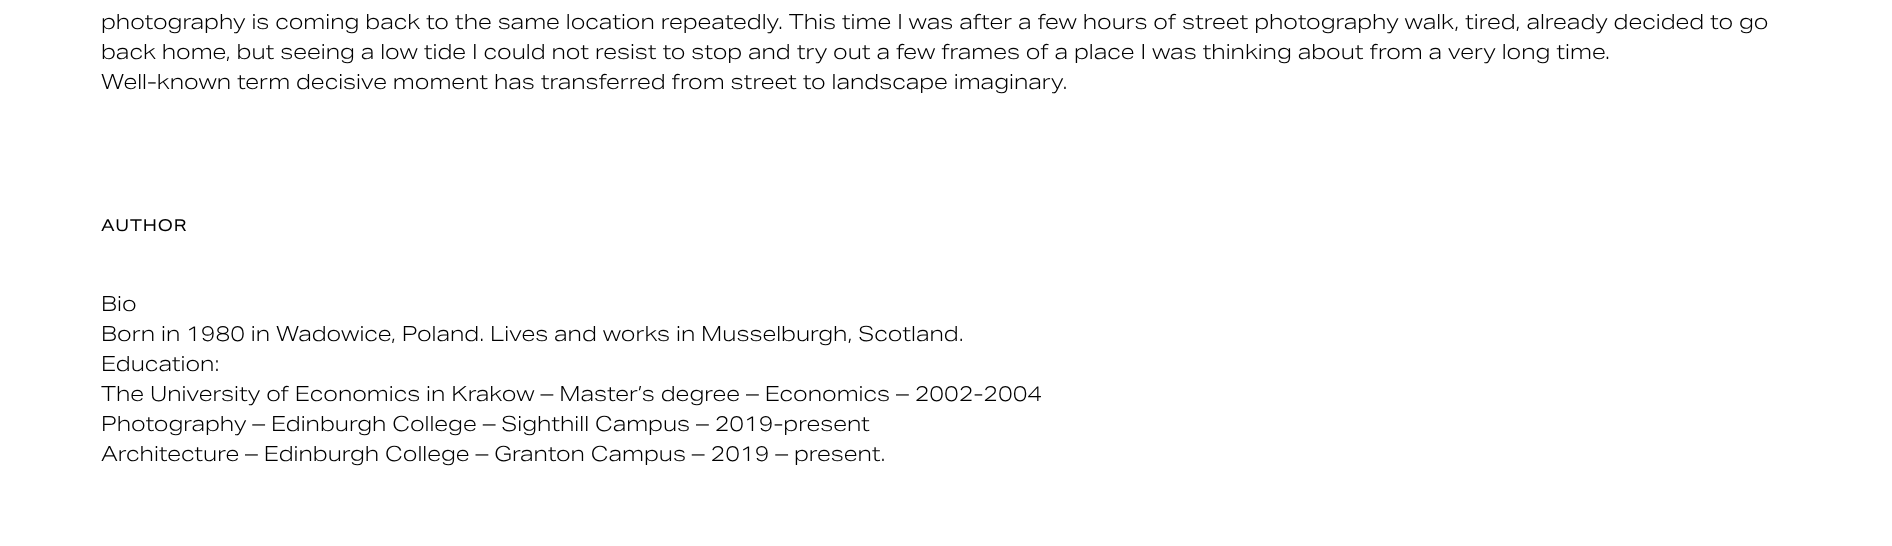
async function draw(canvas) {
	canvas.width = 1892;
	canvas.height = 546;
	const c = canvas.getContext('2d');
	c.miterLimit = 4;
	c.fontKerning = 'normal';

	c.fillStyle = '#fff';
	c.fillRect(0, 0, 1892, 546);
	c.font = '300 21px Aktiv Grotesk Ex';
	c.fillStyle = '#000';
	for (const [text, x, y] of [
		['photography is coming back to the same location repeatedly. This time I was after a few hours of street photography walk, tired, already decided to go', 101, 29],
		['back home, but seeing a low tide I could not resist to stop and try out a few frames of a place I was thinking about from a very long time.', 101, 59],
		['Well-known term decisive moment has transferred from street to landscape imaginary.', 101, 89],
	]) {
		c.fillText(text, x, y);
	}
	c.letterSpacing = '1px';
	c.font = '16.5px Aktiv Grotesk Ex';
	c.fillText('AUTHOR', 101, 231);
	c.letterSpacing = '0px';
	c.font = '300 21px Aktiv Grotesk Ex';
	for (const [text, x, y] of [
		['Bio', 101, 311],
		['Born in 1980 in Wadowice, Poland. Lives and works in Musselburgh, Scotland.', 101, 341],
		['Education:', 101, 371],
		['The University of Economics in Krakow – Master’s degree – Economics – 2002-2004', 101, 401],
		['Photography – Edinburgh College – Sighthill Campus – 2019-present', 101, 431],
		['Architecture – Edinburgh College – Granton Campus – 2019 – present.', 101, 461],
	]) {
		c.fillText(text, x, y);
	}
}

draw(document.querySelector('canvas'));
